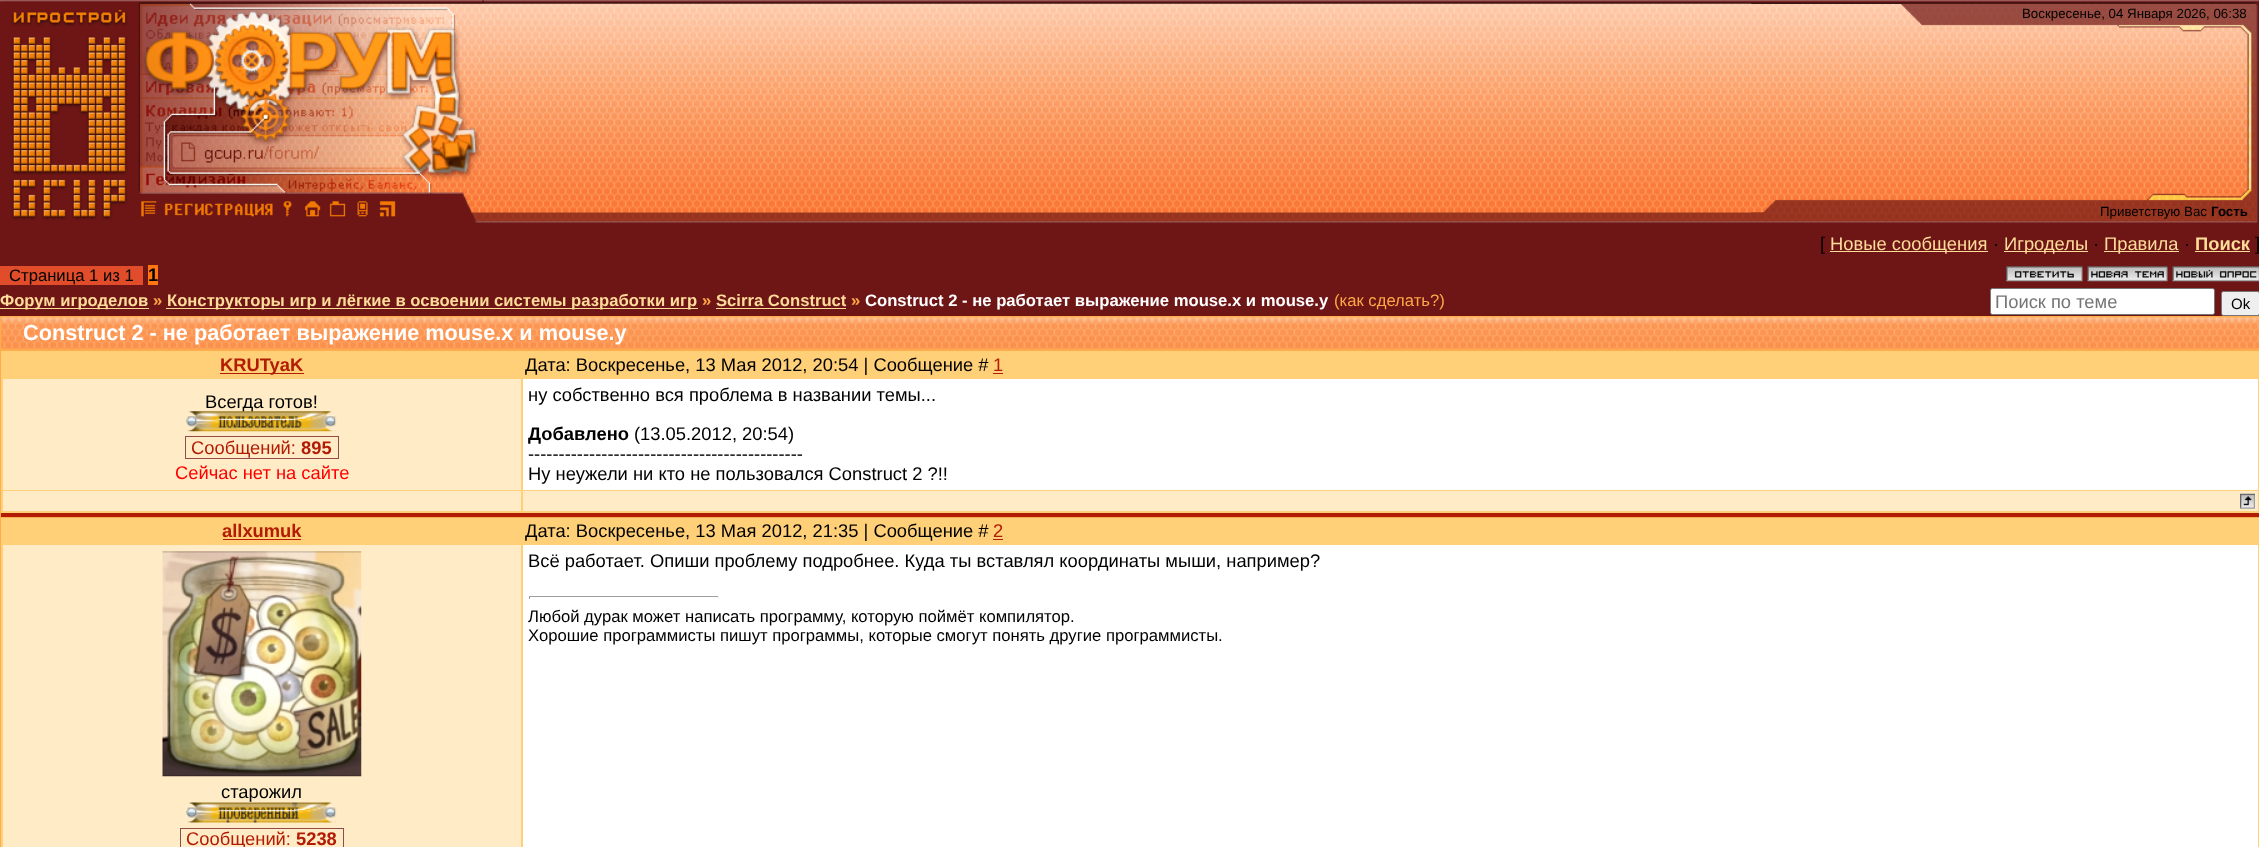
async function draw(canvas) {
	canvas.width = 2259;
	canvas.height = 847;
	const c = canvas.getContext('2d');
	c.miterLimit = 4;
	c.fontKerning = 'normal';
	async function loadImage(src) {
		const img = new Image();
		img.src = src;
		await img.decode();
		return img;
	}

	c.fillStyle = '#6e1616';
	c.fillRect(0, 0, 2259, 847);
	c.drawImage(await loadImage('img1.png'), 483, 0, 1765, 223);
	c.drawImage(await loadImage('img2.png'), 0, 0, 484, 223);
	c.drawImage(await loadImage('img3.png'), 141, 201, 16, 16);
	c.drawImage(await loadImage('img4.png'), 164, 203, 109, 14);
	c.drawImage(await loadImage('img5.png'), 283, 201, 9, 16);
	c.drawImage(await loadImage('img6.png'), 304, 201, 17, 16);
	c.drawImage(await loadImage('img7.png'), 329, 201, 17, 16);
	c.drawImage(await loadImage('img8.png'), 357, 201, 11, 16);
	c.drawImage(await loadImage('img9.png'), 379, 201, 17, 16);
	c.drawImage(await loadImage('img10.png'), 1751, 0, 508, 225);
	c.font = '13.3px Liberation Sans';
	c.fillStyle = '#000';
	c.fillText('Воскресенье, 04 Января 2026, 06:38', 2022, 18);
	c.fillText('Приветствую Вас', 2100, 216);
	c.font = 'bold 13.3px Liberation Sans';
	c.fillText('Гость', 2211, 216);
	c.font = '18.35px Liberation Sans';
	c.fillText('[', 1820, 250);
	c.fillStyle = '#ffdc99';
	c.fillRect(1830, 251, 158, 1);
	c.fillText('Новые сообщения', 1830, 250);
	c.fillStyle = '#000';
	c.fillText('·', 1993, 250);
	c.fillStyle = '#ffdc99';
	c.fillRect(2004, 251, 84, 1);
	c.fillText('Игроделы', 2004, 250);
	c.fillStyle = '#000';
	c.fillText('·', 2093, 250);
	c.fillStyle = '#ffdc99';
	c.fillRect(2104, 251, 75, 1);
	c.fillText('Правила', 2104, 250);
	c.fillStyle = '#000';
	c.fillText('·', 2184, 250);
	c.font = 'bold 18.35px Liberation Sans';
	c.fillStyle = '#ffdc99';
	c.fillText('Поиск', 2195, 250);
	c.fillRect(2195, 251, 55, 1);
	c.font = '18.35px Liberation Sans';
	c.fillStyle = '#000';
	c.fillText(']', 2255, 250);
	c.fillStyle = '#e14c2a';
	c.fillRect(0, 266, 143, 19);
	c.font = '16.65px Liberation Sans';
	c.fillStyle = '#000';
	c.fillText('Страница 1 из 1', 9, 281);
	c.fillStyle = '#ff7611';
	c.fillRect(148, 265, 10, 20);
	c.font = 'bold 18.35px Liberation Sans';
	c.fillStyle = '#000';
	c.fillText('1', 148, 281);
	c.drawImage(await loadImage('img11.png'), 2006, 266, 77, 16);
	c.drawImage(await loadImage('img12.png'), 2087, 266, 81, 16);
	c.drawImage(await loadImage('img13.png'), 2172, 266, 87, 16);
	c.fillStyle = '#ffdc99';
	c.fillRect(0, 308, 149, 1);
	c.font = 'bold 16.65px Liberation Sans';
	c.fillText('Форум игроделов', 0, 306);
	c.fillStyle = '#ffa747';
	c.fillText('»', 153, 306);
	c.fillStyle = '#ffdc99';
	c.fillRect(166, 308, 532, 1);
	c.fillText('Конструкторы игр и лёгкие в освоении системы разработки игр', 167, 306);
	c.fillStyle = '#ffa747';
	c.fillText('»', 702, 306);
	c.fillStyle = '#ffdc99';
	c.fillText('Scirra Construct', 716, 306);
	c.fillRect(716, 308, 130, 1);
	c.fillStyle = '#ffa747';
	c.fillText('»', 851, 306);
	c.fillStyle = '#fff';
	c.fillText('Construct 2 - не работает выражение mouse.x и mouse.y', 865, 306);
	c.font = '16.65px Liberation Sans';
	c.fillStyle = '#ffa747';
	c.fillText('(как сделать?)', 1334, 306);
	c.fillStyle = '#fff';
	c.beginPath();
	c.roundRect(1990.5, 288.5, 224, 26, 2);
	c.fill();
	c.strokeStyle = '#767676';
	c.stroke();
	c.font = '18.35px Liberation Sans';
	c.fillStyle = '#757575';
	c.fillText('Поиск по теме', 1995, 308);
	c.fillStyle = '#efefef';
	c.beginPath();
	c.roundRect(2221.5, 291.5, 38, 24, 2);
	c.fill();
	c.stroke();
	c.font = '15px Liberation Sans';
	c.fillStyle = '#000';
	c.fillText('Ok', 2231, 309);
	c.fillStyle = '#ffac4c';
	c.fillRect(0, 316, 2259, 531);
	c.drawImage(await loadImage('img14.png'), 1, 317, 2258, 32);
	c.font = 'bold 21.7px Liberation Sans';
	c.fillStyle = '#fff';
	c.fillText('Construct 2 - не работает выражение mouse.x и mouse.y', 23, 340);
	for (const [x, y, w, h, color] of [
		[1, 513, 2258, 4, '#b21b04'],
		[1, 351, 2258, 162, '#ffd077'],
		[220, 373, 84, 1, '#b21b04'],
	]) {
		c.fillStyle = color;
		c.fillRect(x, y, w, h);
	}
	c.font = 'bold 18.35px Liberation Sans';
	c.fillText('KRUTyaK', 220, 371);
	c.font = '18.35px Liberation Sans';
	c.fillStyle = '#000';
	c.fillText('Дата: Воскресенье, 13 Мая 2012, 20:54 | Сообщение #', 525, 371);
	c.fillStyle = '#b21b04';
	c.fillText('1', 993, 371);
	c.fillRect(993, 373, 10, 1);
	c.fillStyle = '#ffecc7';
	c.fillRect(3, 379, 518, 111);
	c.fillStyle = '#000';
	c.fillText('Всегда готов!', 205, 408);
	c.drawImage(await loadImage('img15.png'), 186, 411, 151, 21);
	c.fillStyle = '#b21b04';
	c.fillText('Сообщений:', 191, 454);
	for (const [x, y, w, h, color] of [
		[185, 458, 116, 1, '#934a4a'],
		[185, 436, 154, 1, '#934a4a'],
		[185, 436, 1, 23, '#934a4a'],
	]) {
		c.fillStyle = color;
		c.fillRect(x, y, w, h);
	}
	c.font = 'bold 18.35px Liberation Sans';
	c.fillStyle = '#b21b04';
	c.fillText('895', 301, 454);
	c.fillStyle = '#934a4a';
	c.fillRect(338, 436, 1, 23);
	c.fillRect(301, 458, 38, 1);
	c.font = '18.35px Liberation Sans';
	c.fillStyle = '#f00';
	c.fillText('Сейчас нет на сайте', 175, 479);
	c.fillStyle = '#fff';
	c.fillRect(523, 379, 1735, 111);
	c.fillStyle = '#000';
	c.fillText('ну собственно вся проблема в названии темы...', 528, 401);
	c.font = 'bold 18.35px Liberation Sans';
	c.fillText('Добавлено', 528, 440);
	c.font = '18.35px Liberation Sans';
	for (const [text, x, y] of [
		['(13.05.2012, 20:54)', 634, 440],
		['---------------------------------------------', 528, 460],
		['Ну неужели ни кто не пользовался Construct 2 ?!!', 528, 480],
	]) {
		c.fillText(text, x, y);
	}
	c.fillStyle = '#ffecc7';
	c.fillRect(3, 491, 518, 20);
	c.fillRect(523, 491, 1735, 20);
	c.drawImage(await loadImage('img16.png'), 2240, 493, 15, 16);
	c.fillStyle = '#ffd077';
	c.fillRect(1, 518, 2258, 329);
	c.font = 'bold 18.35px Liberation Sans';
	c.fillStyle = '#b21b04';
	c.fillText('allxumuk', 222, 537);
	c.fillRect(223, 539, 78, 1);
	c.font = '18.35px Liberation Sans';
	c.fillStyle = '#000';
	c.fillText('Дата: Воскресенье, 13 Мая 2012, 21:35 | Сообщение #', 525, 537);
	c.fillStyle = '#b21b04';
	c.fillText('2', 993, 537);
	c.fillRect(993, 539, 10, 1);
	c.fillStyle = '#fff';
	c.fillRect(523, 545, 1735, 302);
	c.fillStyle = '#000';
	c.fillText('Всё работает. Опиши проблему подробнее. Куда ты вставлял координаты мыши, например?', 528, 567);
	for (const [x, y, w, h, color] of [
		[529, 596, 190, 1, '#9f9f9f'],
		[718, 596, 1, 3, '#eee'],
		[529, 596, 1, 3, '#9f9f9f'],
	]) {
		c.fillStyle = color;
		c.fillRect(x, y, w, h);
	}
	c.font = '16.65px Liberation Sans';
	c.fillStyle = '#000';
	c.fillText('Любой дурак может написать программу, которую поймёт компилятор.', 528, 622);
	c.fillText('Хорошие программисты пишут программы, которые смогут понять другие программисты.', 528, 641);
	c.fillStyle = '#ffecc7';
	c.fillRect(3, 545, 518, 302);
	c.drawImage(await loadImage('img17.png'), 162, 551, 200, 226);
	c.font = '18.35px Liberation Sans';
	c.fillStyle = '#000';
	c.fillText('старожил', 221, 798);
	c.drawImage(await loadImage('img18.png'), 186, 802, 151, 21);
	c.fillStyle = '#b21b04';
	c.fillText('Сообщений:', 186, 845);
	c.fillStyle = '#934a4a';
	c.fillRect(180, 828, 164, 1);
	c.fillRect(180, 828, 1, 19);
	c.font = 'bold 18.35px Liberation Sans';
	c.fillStyle = '#b21b04';
	c.fillText('5238', 296, 845);
	c.fillStyle = '#934a4a';
	c.fillRect(343, 828, 1, 19);
}

draw(document.querySelector('canvas'));
